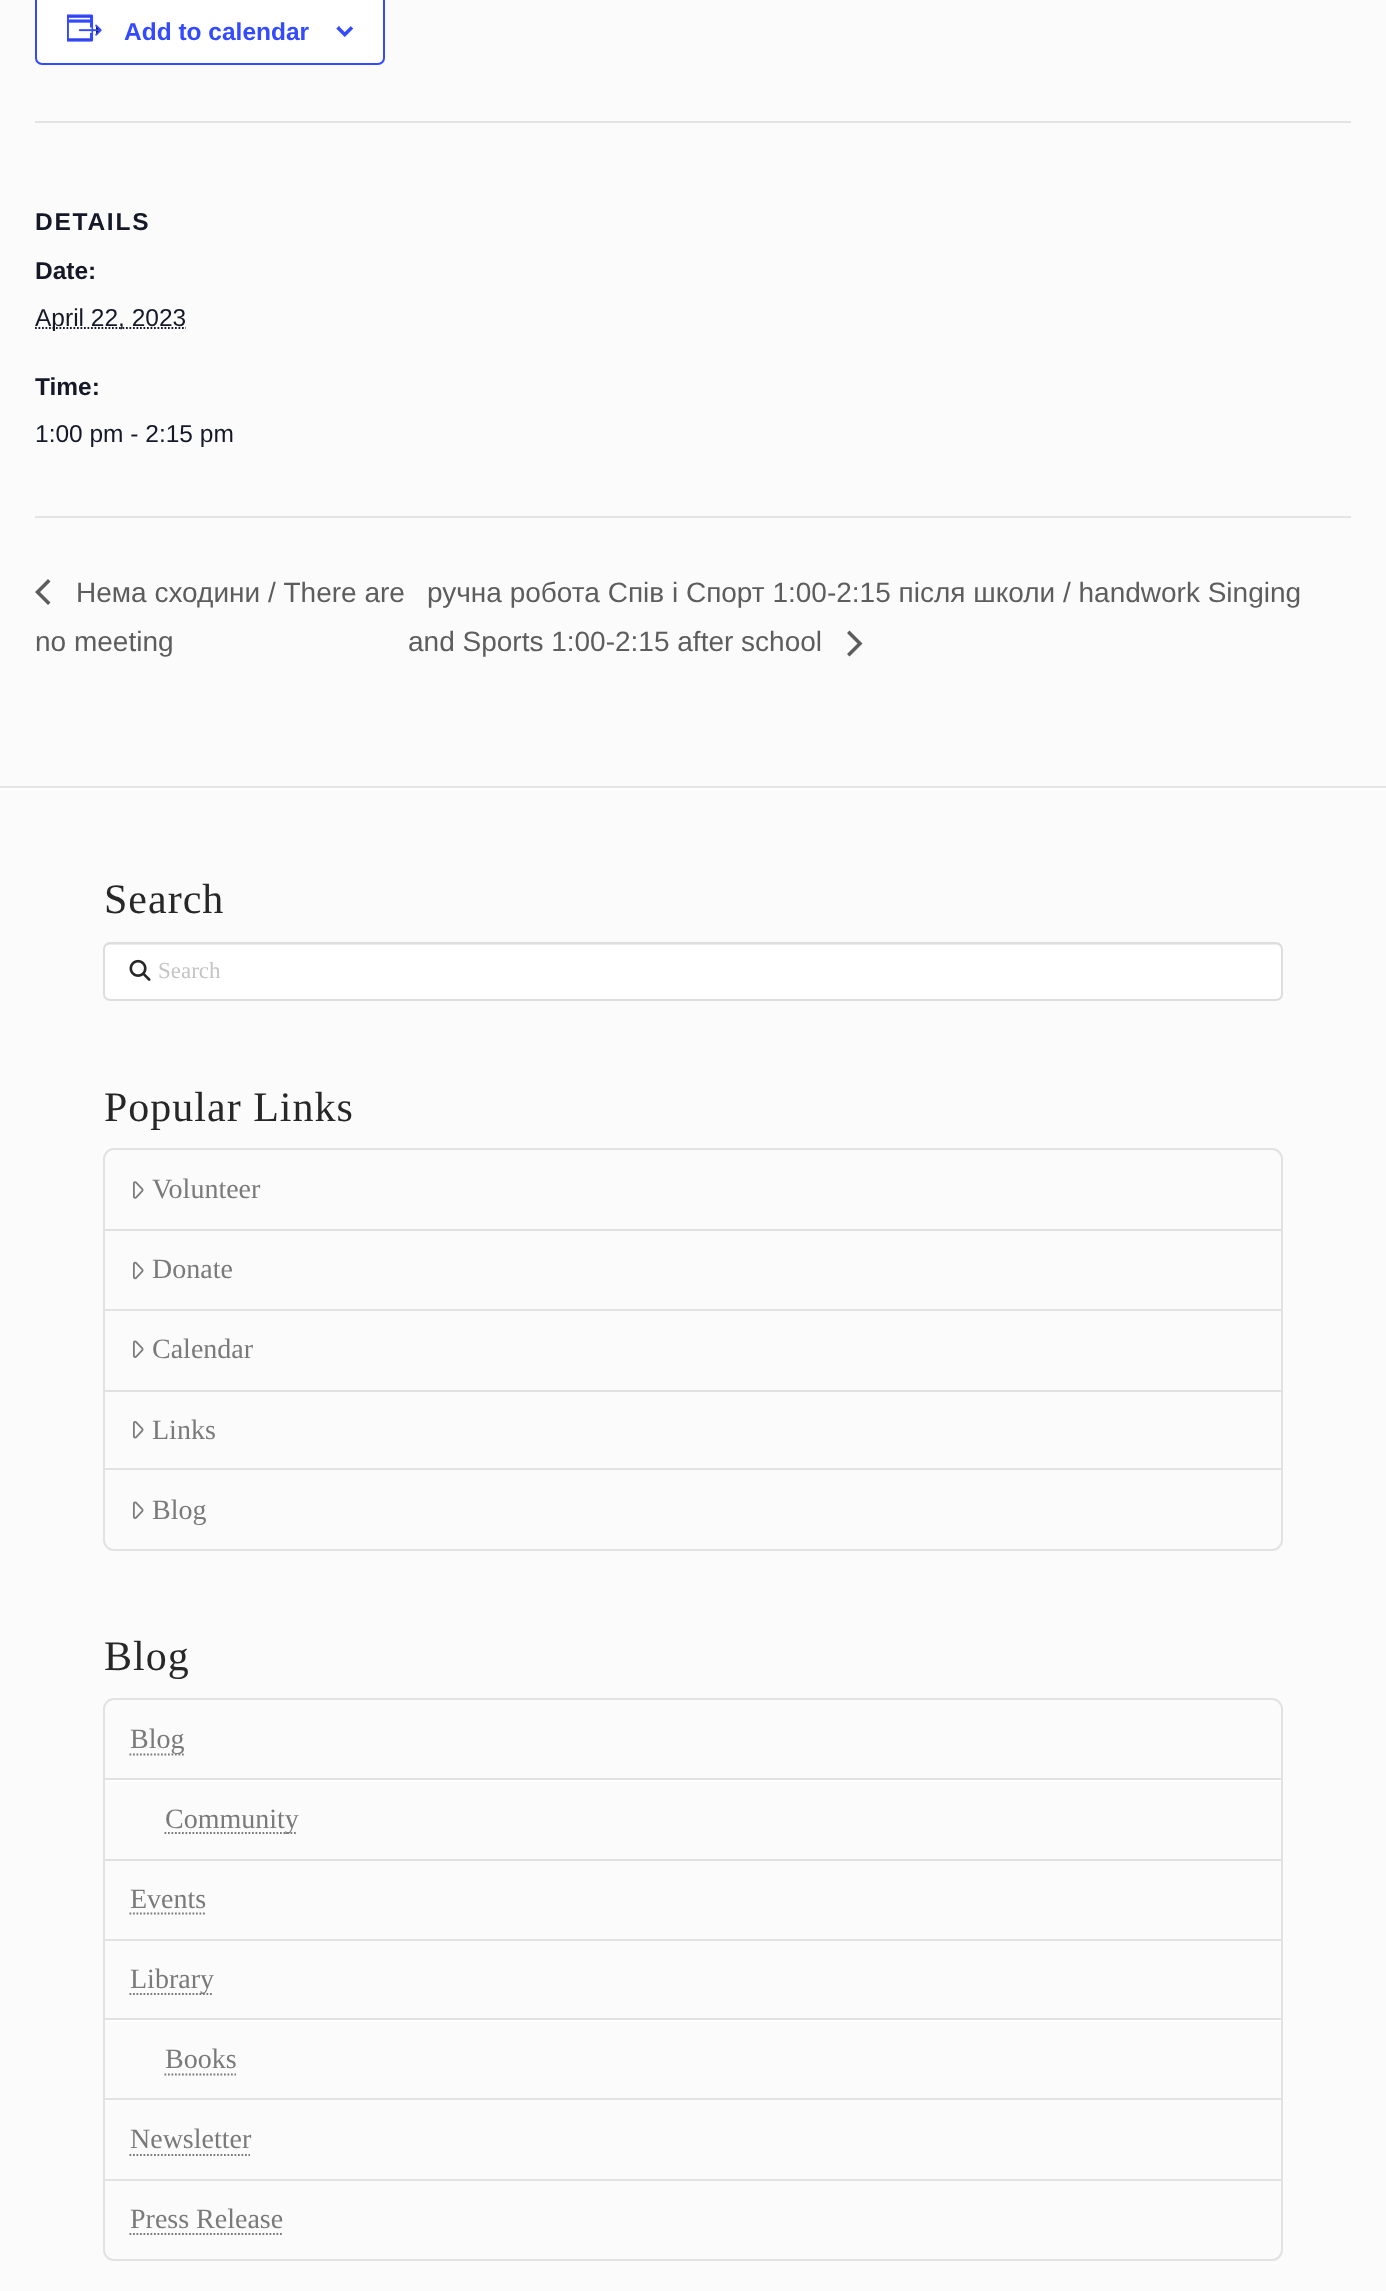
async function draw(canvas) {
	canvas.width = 1386;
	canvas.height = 2291;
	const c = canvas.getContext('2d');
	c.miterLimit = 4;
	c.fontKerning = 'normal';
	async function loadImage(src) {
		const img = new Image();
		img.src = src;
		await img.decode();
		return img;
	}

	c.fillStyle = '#fbfbfb';
	c.fillRect(0, 0, 1386, 2291);
	c.fillStyle = '#fff';
	c.beginPath();
	c.roundRect(36, -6, 348, 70, 6);
	c.fill();
	c.strokeStyle = '#334aff';
	c.lineWidth = 2;
	c.stroke();
	c.drawImage(await loadImage('img1.png'), 67, 14, 35, 28);
	c.font = 'bold 24.5px Liberation Sans';
	c.fillStyle = '#334aff';
	c.fillText('Add to calendar', 124, 40);
	c.drawImage(await loadImage('img2.png'), 336, 26, 18, 11);
	c.fillStyle = '#e4e4e4';
	c.fillRect(35, 121, 1316, 2);
	c.letterSpacing = '1.75px';
	c.fillStyle = '#141827';
	c.fillText('DETAILS', 35, 230);
	c.letterSpacing = '0px';
	c.fillText('Date:', 35, 279);
	c.beginPath();
	c.moveTo(35, 328);
	c.lineTo(186, 328);
	c.strokeStyle = '#141827';
	c.lineWidth = 1.8;
	c.setLineDash([1.75, 1.75]);
	c.stroke();
	c.font = '24.5px Liberation Sans';
	c.fillText('April 22, 2023', 35, 326);
	c.font = 'bold 24.5px Liberation Sans';
	c.fillText('Time:', 35, 395);
	c.font = '24.5px Liberation Sans';
	c.fillText('1:00 pm - 2:15 pm', 35, 442);
	c.fillStyle = '#e4e4e4';
	c.fillRect(35, 516, 1316, 2);
	c.fillStyle = '#5d5d5d';
	c.beginPath();
	c.moveTo(50.5, 602.5);
	c.lineTo(48, 605);
	c.lineTo(35, 592);
	c.lineTo(48, 579);
	c.lineTo(50.5, 581.5);
	c.lineTo(40, 592);
	c.closePath();
	c.fill();
	c.font = '28px Liberation Sans';
	for (const [text, x, y] of [
		['Нема сходини / There are', 76, 602],
		['no meeting', 35, 651],
		['ручна робота Спів і Спорт 1:00-2:15 після школи / handwork Singing', 427, 602],
		['and Sports 1:00-2:15 after school', 408, 651],
	]) {
		c.fillText(text, x, y);
	}
	c.beginPath();
	c.moveTo(847, 633);
	c.lineTo(849.5, 630.5);
	c.lineTo(862.5, 643.5);
	c.lineTo(849.5, 656.5);
	c.lineTo(847, 654);
	c.lineTo(857.5, 643.5);
	c.closePath();
	c.fill();
	c.fillStyle = '#fefefe';
	c.fillRect(0, 788, 1386, 2);
	c.fillStyle = '#e5e5e5';
	c.fillRect(0, 786, 1386, 2);
	c.letterSpacing = '1px';
	c.font = '42px Liberation Serif';
	c.fillStyle = '#272727';
	c.fillText('Search', 104, 913);
	c.fillStyle = '#fff';
	c.beginPath();
	c.roundRect(103, 942, 1180, 59, 7);
	c.fill();
	c.fillStyle = '#ececec';
	c.beginPath();
	c.moveTo(110, 945);
	c.lineTo(1276, 945);
	c.bezierCurveTo(1279, 945, 1281, 947, 1281, 950);
	c.lineTo(1281, 948);
	c.bezierCurveTo(1281, 945, 1279, 943, 1276, 943);
	c.lineTo(110, 943);
	c.bezierCurveTo(107, 943, 105, 945, 105, 948);
	c.lineTo(105, 950);
	c.bezierCurveTo(105, 947, 107, 945, 110, 945);
	c.closePath();
	c.fill();
	c.beginPath();
	c.roundRect(104, 943, 1178, 57, 6);
	c.strokeStyle = '#ddd';
	c.lineWidth = 2;
	c.setLineDash([]);
	c.stroke();
	c.drawImage(await loadImage('img3.png'), 129, 959, 22, 22);
	c.letterSpacing = '0px';
	c.font = '23px Liberation Serif';
	c.fillStyle = '#c5c5c5';
	c.fillText('Search', 158, 978);
	c.letterSpacing = '1px';
	c.font = '42px Liberation Serif';
	c.fillStyle = '#272727';
	c.fillText('Popular Links', 104, 1121);
	c.beginPath();
	c.roundRect(104, 1149, 1178, 401, 10);
	c.strokeStyle = '#e2e2e2';
	c.stroke();
	c.fillStyle = '#0000001a';
	c.fillRect(105, 1229, 1176, 2);
	c.drawImage(await loadImage('img4.png'), 133, 1181, 11, 18);
	c.letterSpacing = '0px';
	c.font = '28px Liberation Serif';
	c.fillStyle = '#7a7a7a';
	c.fillText('Volunteer', 152, 1198);
	c.fillStyle = '#e2e2e2';
	c.fillRect(105, 1309, 1176, 2);
	c.drawImage(await loadImage('img5.png'), 133, 1261, 11, 19);
	c.fillStyle = '#7a7a7a';
	c.fillText('Donate', 152, 1278);
	c.fillStyle = '#0000001a';
	c.fillRect(105, 1390, 1176, 2);
	c.drawImage(await loadImage('img6.png'), 133, 1340, 11, 18);
	c.fillStyle = '#7a7a7a';
	c.fillText('Calendar', 152, 1358);
	c.fillStyle = '#e2e2e2';
	c.fillRect(105, 1468, 1176, 2);
	c.drawImage(await loadImage('img7.png'), 133, 1421, 11, 18);
	c.fillStyle = '#7a7a7a';
	c.fillText('Links', 152, 1439);
	c.drawImage(await loadImage('img6.png'), 133, 1501, 11, 18);
	c.fillText('Blog', 152, 1519);
	c.letterSpacing = '1px';
	c.font = '42px Liberation Serif';
	c.fillStyle = '#272727';
	c.fillText('Blog', 104, 1670);
	c.beginPath();
	c.roundRect(104, 1699, 1178, 561, 10);
	c.stroke();
	c.fillStyle = '#0000001a';
	c.fillRect(105, 1859, 1176, 2);
	c.beginPath();
	c.moveTo(129.5, 1754.5);
	c.lineTo(184, 1754.5);
	c.strokeStyle = '#7a7a7a';
	c.lineWidth = 1.8;
	c.setLineDash([1.75, 1.75]);
	c.stroke();
	c.letterSpacing = '0px';
	c.font = '28px Liberation Serif';
	c.fillStyle = '#7a7a7a';
	c.fillText('Blog', 130, 1748);
	c.fillStyle = '#fff';
	c.fillRect(105, 1780, 1176, 2);
	c.fillStyle = '#e2e2e2';
	c.fillRect(105, 1778, 1176, 2);
	c.beginPath();
	c.moveTo(164.5, 1833);
	c.lineTo(297.5, 1833);
	c.stroke();
	c.fillStyle = '#7a7a7a';
	c.fillText('Community', 165, 1828);
	c.fillStyle = '#e2e2e2';
	c.fillRect(105, 1939, 1176, 2);
	c.fillStyle = '#7a7a7a';
	c.fillText('Events', 130, 1908);
	c.beginPath();
	c.moveTo(129.5, 1913.5);
	c.lineTo(206.5, 1913.5);
	c.stroke();
	c.fillStyle = '#e2e2e2';
	c.fillRect(105, 2098, 1176, 2);
	c.beginPath();
	c.moveTo(129.5, 1994);
	c.lineTo(213.5, 1994);
	c.stroke();
	c.fillStyle = '#7a7a7a';
	c.fillText('Library', 130, 1988);
	c.fillStyle = '#fff';
	c.fillRect(105, 2020, 1176, 2);
	c.fillStyle = '#e2e2e2';
	c.fillRect(105, 2018, 1176, 2);
	c.fillStyle = '#7a7a7a';
	c.fillText('Books', 165, 2068);
	c.beginPath();
	c.moveTo(164.5, 2074.5);
	c.lineTo(236, 2074.5);
	c.stroke();
	c.fillStyle = '#e3e3e3';
	c.fillRect(105, 2179, 1176, 2);
	c.fillStyle = '#7a7a7a';
	c.fillText('Newsletter', 130, 2148);
	c.beginPath();
	c.moveTo(129.5, 2155);
	c.lineTo(250, 2155);
	c.stroke();
	c.fillText('Press Release', 130, 2228);
	c.beginPath();
	c.moveTo(129.5, 2234);
	c.lineTo(283.5, 2234);
	c.stroke();
}

draw(document.querySelector('canvas'));
